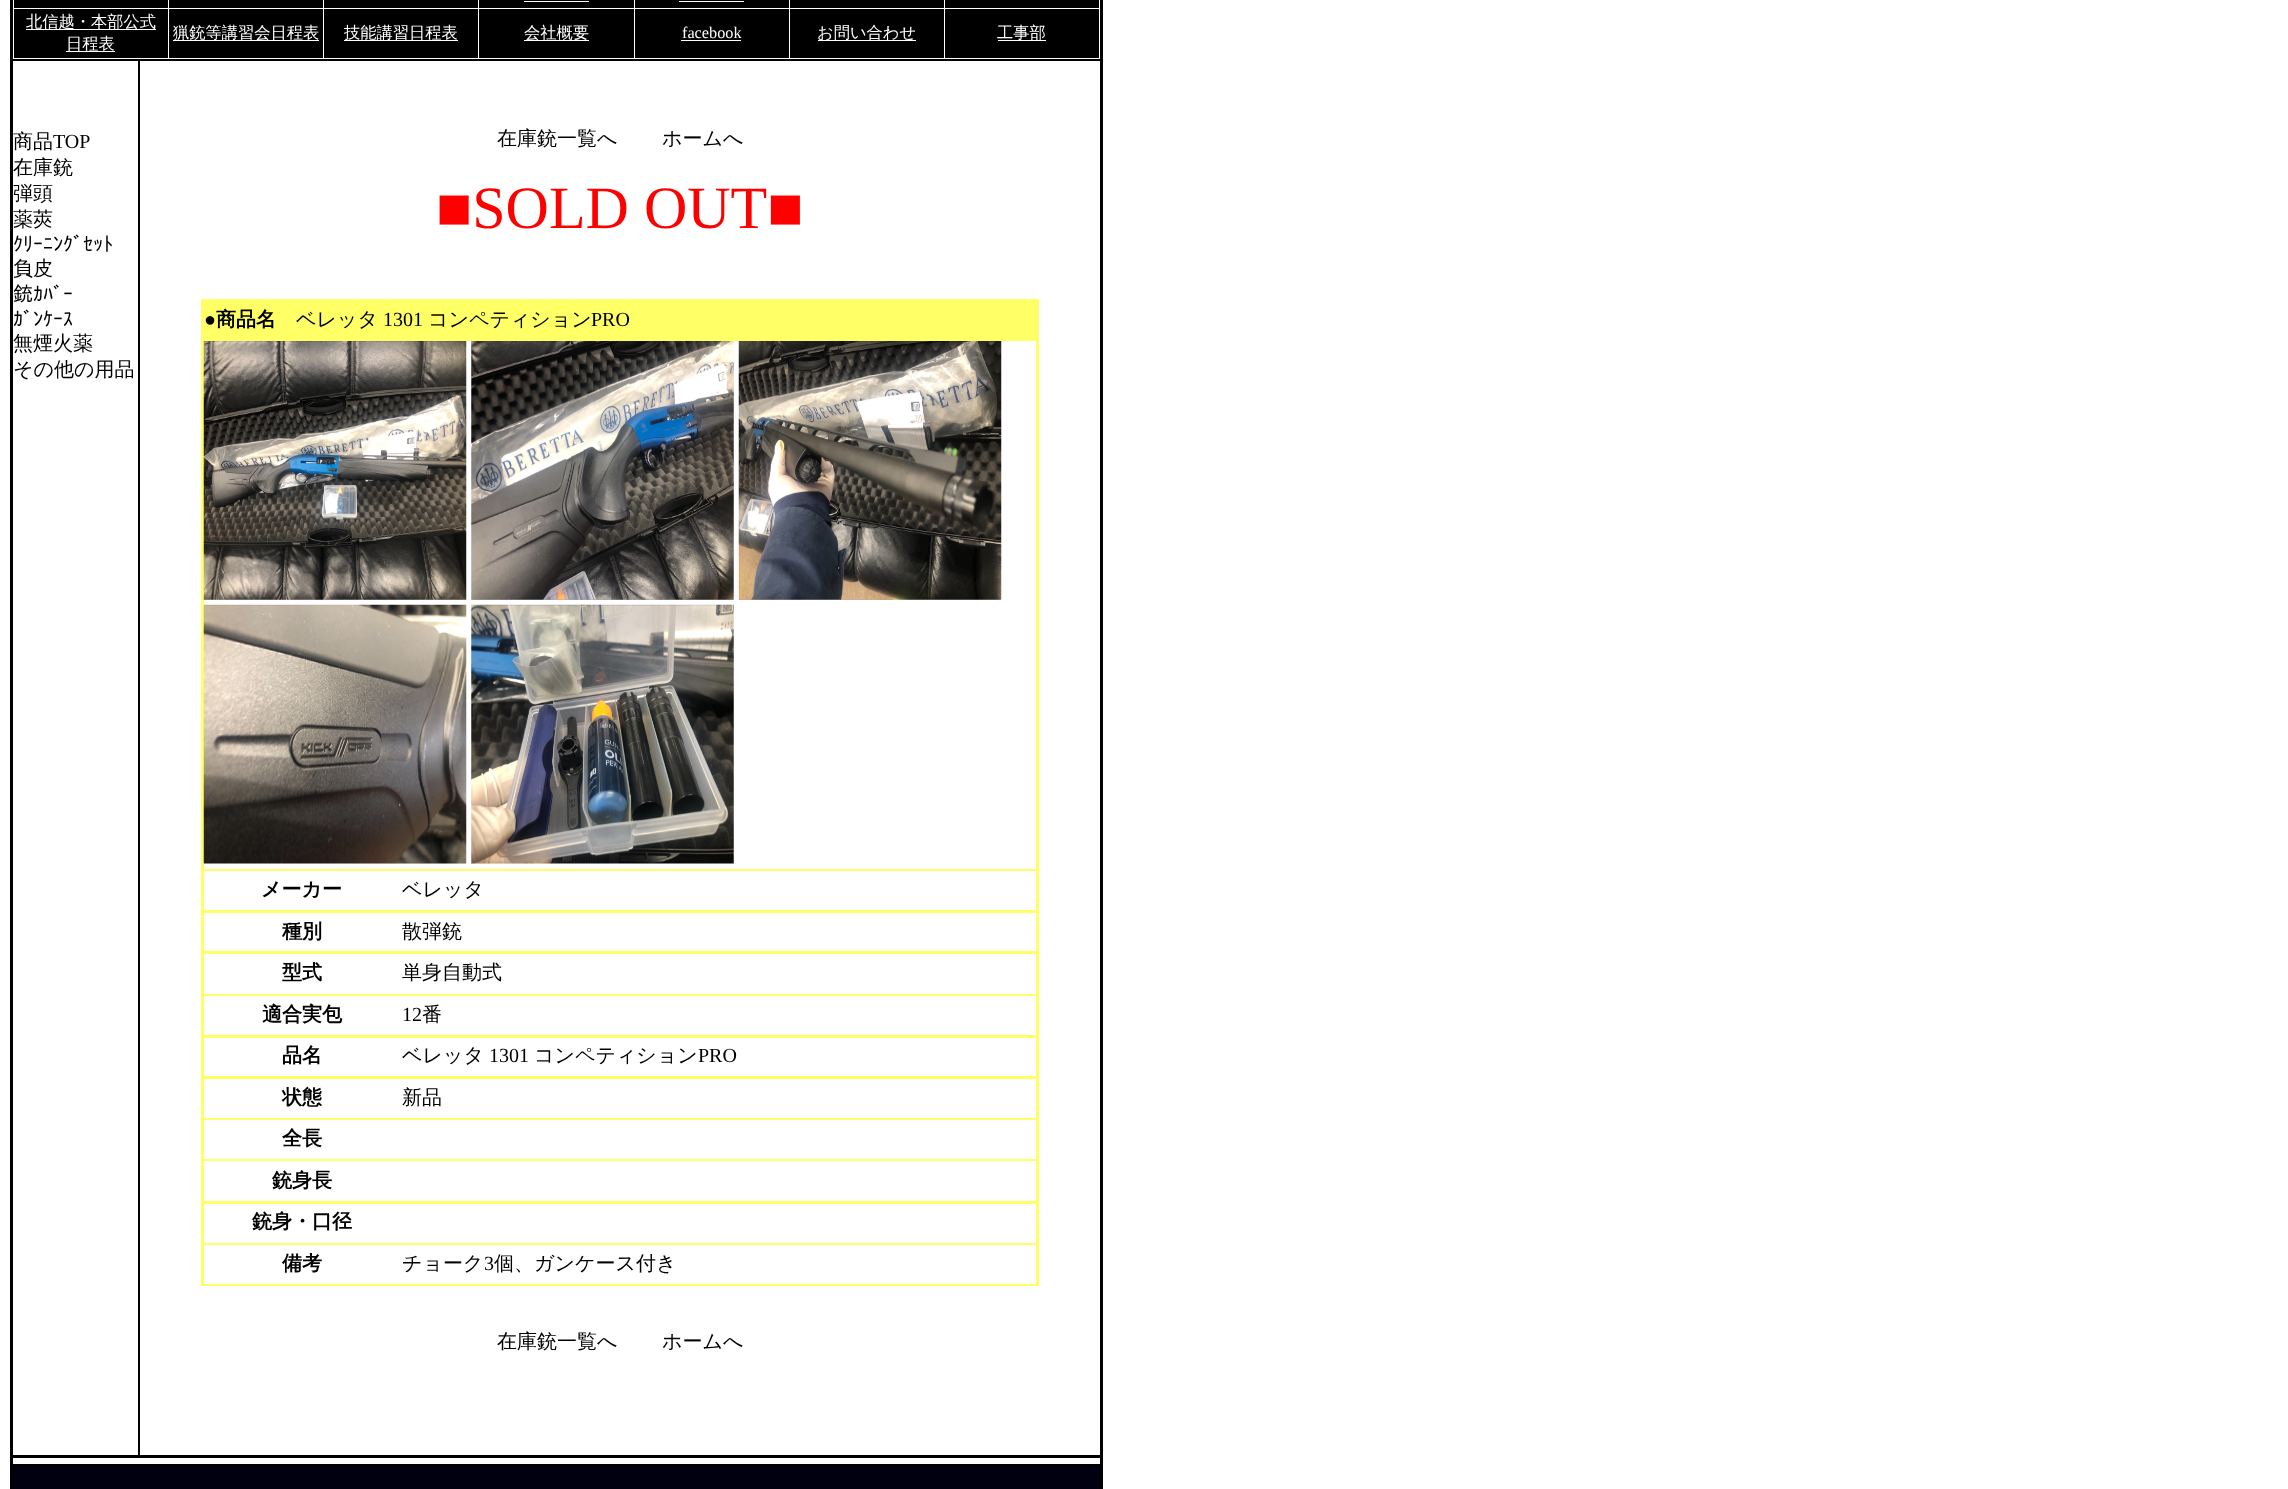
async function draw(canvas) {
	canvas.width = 2288;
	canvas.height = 1489;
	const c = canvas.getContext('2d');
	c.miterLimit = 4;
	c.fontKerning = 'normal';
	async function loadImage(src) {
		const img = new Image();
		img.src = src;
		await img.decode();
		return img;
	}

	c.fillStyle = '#fff';
	c.fillRect(0, 0, 2288, 1489);
	for (const [x, y, w, h, color] of [
		[10, 0, 1093, 1489, '#000'],
		[13, 0, 1087, 59, '#fff'],
		[14, 0, 154, 8, '#000'],
		[169, 0, 154, 8, '#000'],
		[324, 0, 154, 8, '#000'],
		[479, 0, 155, 8, '#000'],
		[524, 1, 65, 1, '#fff'],
		[635, 0, 154, 8, '#000'],
		[679, 1, 65, 1, '#fff'],
		[790, 0, 154, 8, '#000'],
		[945, 0, 154, 8, '#000'],
		[14, 9, 154, 49, '#000'],
		[26, 29, 130, 1, '#fff'],
	]) {
		c.fillStyle = color;
		c.fillRect(x, y, w, h);
	}
	c.font = '500 16.25px WenQuanYi Zen Hei';
	c.fillText('北信越・本部公式', 26, 27);
	c.fillText('日程表', 66, 49);
	for (const [x, y, w, h, color] of [
		[66, 51, 49, 1, '#fff'],
		[169, 9, 154, 49, '#000'],
		[173, 40, 146, 1, '#fff'],
	]) {
		c.fillStyle = color;
		c.fillRect(x, y, w, h);
	}
	c.fillText('猟銃等講習会日程表', 173, 38);
	c.fillStyle = '#000';
	c.fillRect(324, 9, 154, 49);
	c.fillStyle = '#fff';
	c.fillRect(344, 40, 114, 1);
	c.fillText('技能講習日程表', 344, 38);
	c.fillStyle = '#000';
	c.fillRect(479, 9, 155, 49);
	c.fillStyle = '#fff';
	c.fillRect(524, 40, 65, 1);
	c.fillText('会社概要', 524, 38);
	c.fillStyle = '#000';
	c.fillRect(635, 9, 154, 49);
	c.font = '16.25px Liberation Serif';
	c.fillStyle = '#fff';
	c.fillText('facebook', 682, 38);
	for (const [x, y, w, h, color] of [
		[681, 40, 60, 1, '#fff'],
		[790, 9, 154, 49, '#000'],
		[818, 40, 98, 1, '#fff'],
	]) {
		c.fillStyle = color;
		c.fillRect(x, y, w, h);
	}
	c.font = '500 16.25px WenQuanYi Zen Hei';
	c.fillText('お問い合わせ', 817, 38);
	c.fillStyle = '#000';
	c.fillRect(945, 9, 154, 49);
	c.fillStyle = '#fff';
	c.fillRect(998, 40, 48, 1);
	c.fillText('工事部', 997, 38);
	c.fillRect(13, 61, 125, 1394);
	c.font = '500 20px WenQuanYi Zen Hei';
	c.fillStyle = '#000';
	c.fillText('商品', 13, 148);
	c.font = '20px Liberation Serif';
	c.fillText('TOP', 53, 148);
	c.font = '500 20px WenQuanYi Zen Hei';
	for (const [text, x, y] of [
		['在庫銃', 13, 174],
		['弾頭', 13, 200],
		['薬莢', 13, 226],
	]) {
		c.fillText(text, x, y);
	}
	c.font = '20px IPAGothic';
	c.fillText('ｸﾘｰﾆﾝｸﾞｾｯﾄ', 13, 251);
	c.font = '500 20px WenQuanYi Zen Hei';
	c.fillText('負皮', 13, 275);
	c.font = '20px IPAGothic';
	c.fillText('銃ｶﾊﾞｰ', 13, 301);
	c.fillText('ｶﾞﾝｹｰｽ', 13, 326);
	c.font = '500 20px WenQuanYi Zen Hei';
	c.fillText('無煙火薬', 13, 350);
	c.fillText('その他の用品', 13, 376);
	c.fillStyle = '#fff';
	c.fillRect(140, 61, 960, 1394);
	c.fillStyle = '#000';
	c.fillText('在庫銃一覧へ', 497, 145);
	c.fillText('ホームへ', 662, 145);
	c.font = '60px Liberation Serif';
	c.fillStyle = '#f00';
	c.fillText('■SOLD OUT■', 436, 228);
	c.fillStyle = '#ff6';
	c.fillRect(201, 299, 838, 987);
	c.font = 'bold 20px Liberation Serif';
	c.fillStyle = '#000';
	c.fillText('●', 204, 326);
	c.font = 'bold 20px WenQuanYi Zen Hei';
	c.fillText('商品名', 216, 326);
	c.font = '500 20px WenQuanYi Zen Hei';
	c.fillText('ベレッタ', 296, 326);
	c.font = '20px Liberation Serif';
	c.fillText('1301', 383, 326);
	c.font = '500 20px WenQuanYi Zen Hei';
	c.fillText('コンペティション', 428, 326);
	c.font = '20px Liberation Serif';
	c.fillText('PRO', 591, 326);
	c.fillStyle = '#fff';
	c.fillRect(204, 341, 832, 528);
	c.drawImage(await loadImage('img1.png'), 203, 341, 264, 259);
	c.drawImage(await loadImage('img2.png'), 471, 341, 263, 259);
	c.drawImage(await loadImage('img3.png'), 738, 341, 264, 259);
	c.drawImage(await loadImage('img4.png'), 203, 604, 264, 260);
	c.drawImage(await loadImage('img5.png'), 471, 604, 263, 260);
	c.fillRect(204, 871, 832, 39);
	c.font = 'bold 20px WenQuanYi Zen Hei';
	c.fillStyle = '#000';
	c.fillText('メーカー', 261, 896);
	c.font = '500 20px WenQuanYi Zen Hei';
	c.fillText('ベレッタ', 402, 896);
	c.fillStyle = '#fff';
	c.fillRect(204, 913, 832, 38);
	c.font = 'bold 20px WenQuanYi Zen Hei';
	c.fillStyle = '#000';
	c.fillText('種別', 282, 938);
	c.font = '500 20px WenQuanYi Zen Hei';
	c.fillText('散弾銃', 402, 938);
	c.fillStyle = '#fff';
	c.fillRect(204, 954, 832, 40);
	c.font = 'bold 20px WenQuanYi Zen Hei';
	c.fillStyle = '#000';
	c.fillText('型式', 282, 979);
	c.font = '500 20px WenQuanYi Zen Hei';
	c.fillText('単身自動式', 402, 979);
	c.fillStyle = '#fff';
	c.fillRect(204, 996, 832, 39);
	c.font = 'bold 20px WenQuanYi Zen Hei';
	c.fillStyle = '#000';
	c.fillText('適合実包', 262, 1021);
	c.font = '20px Liberation Serif';
	c.fillText('12', 402, 1021);
	c.font = '500 20px WenQuanYi Zen Hei';
	c.fillText('番', 422, 1021);
	c.fillStyle = '#fff';
	c.fillRect(204, 1038, 832, 38);
	c.font = 'bold 20px WenQuanYi Zen Hei';
	c.fillStyle = '#000';
	c.fillText('品名', 282, 1062);
	c.font = '500 20px WenQuanYi Zen Hei';
	c.fillText('ベレッタ', 402, 1062);
	c.font = '20px Liberation Serif';
	c.fillText('1301', 489, 1062);
	c.font = '500 20px WenQuanYi Zen Hei';
	c.fillText('コンペティション', 534, 1062);
	c.font = '20px Liberation Serif';
	c.fillText('PRO', 698, 1062);
	c.fillStyle = '#fff';
	c.fillRect(204, 1079, 832, 39);
	c.font = 'bold 20px WenQuanYi Zen Hei';
	c.fillStyle = '#000';
	c.fillText('状態', 282, 1104);
	c.font = '500 20px WenQuanYi Zen Hei';
	c.fillText('新品', 402, 1104);
	c.fillStyle = '#fff';
	c.fillRect(204, 1120, 832, 39);
	c.font = 'bold 20px WenQuanYi Zen Hei';
	c.fillStyle = '#000';
	c.fillText('全長', 282, 1145);
	c.fillStyle = '#fff';
	c.fillRect(204, 1161, 832, 40);
	c.fillStyle = '#000';
	c.fillText('銃身長', 272, 1187);
	c.fillStyle = '#fff';
	c.fillRect(204, 1204, 832, 39);
	c.fillStyle = '#000';
	c.fillText('銃身・口径', 252, 1228);
	c.fillStyle = '#fff';
	c.fillRect(204, 1245, 832, 39);
	c.fillStyle = '#000';
	c.fillText('備考', 282, 1270);
	c.font = '500 20px WenQuanYi Zen Hei';
	c.fillText('チョーク', 402, 1270);
	c.font = '20px Liberation Serif';
	c.fillText('3', 484, 1270);
	c.font = '500 20px WenQuanYi Zen Hei';
	for (const [text, x, y] of [
		['個、ガンケース付き', 494, 1270],
		['在庫銃一覧へ', 497, 1348],
		['ホームへ', 662, 1348],
	]) {
		c.fillText(text, x, y);
	}
	c.fillStyle = '#fff';
	c.fillRect(13, 1458, 1087, 6);
	c.fillStyle = '#001';
	c.fillRect(13, 1466, 1087, 23);
}

draw(document.querySelector('canvas'));
